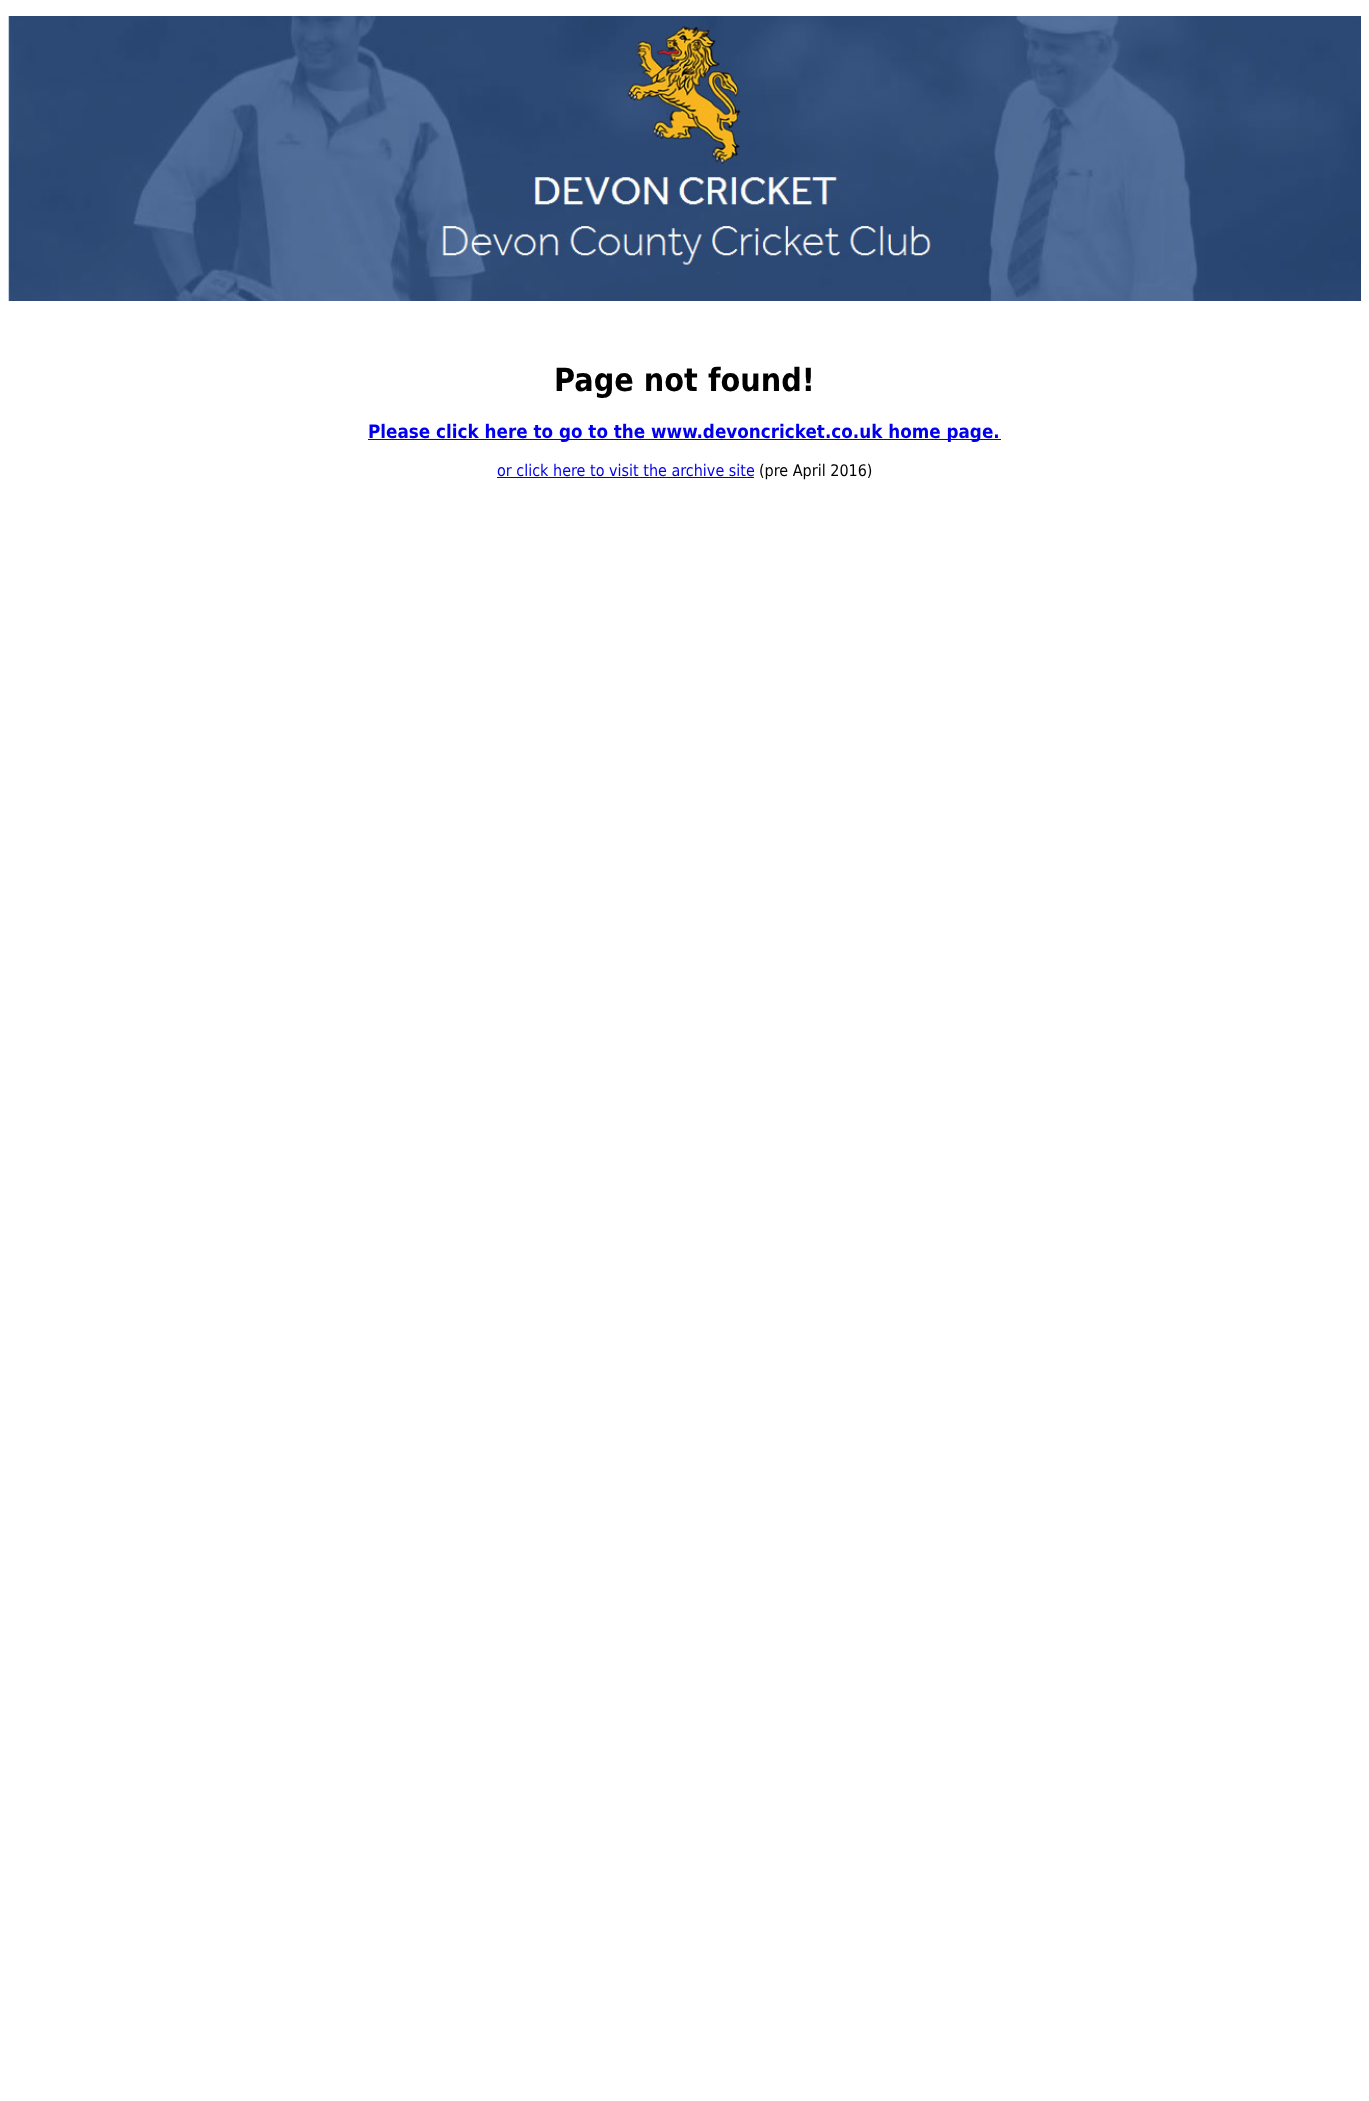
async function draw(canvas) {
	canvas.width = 1369;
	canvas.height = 2101;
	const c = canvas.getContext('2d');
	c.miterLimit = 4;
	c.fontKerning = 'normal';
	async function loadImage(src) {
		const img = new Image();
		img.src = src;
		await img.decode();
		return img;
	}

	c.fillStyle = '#fff';
	c.fillRect(0, 0, 1369, 2101);
	c.drawImage(await loadImage('img1.png'), 8, 16, 1353, 285);
	c.font = 'bold 32px DejaVu Sans';
	c.fillStyle = '#000';
	c.fillText('Page not found!', 554, 391);
	c.fillStyle = '#00e';
	c.fillRect(368, 439, 633, 1);
	c.font = 'bold 18.7px DejaVu Sans';
	c.fillText('Please click here to go to the www.devoncricket.co.uk home page.', 368, 438);
	c.font = '16px DejaVu Sans';
	c.fillText('or click here to visit the archive site', 497, 476);
	c.fillRect(497, 477, 257, 1);
	c.fillStyle = '#000';
	c.fillText('(pre April 2016)', 759, 476);
}

draw(document.querySelector('canvas'));
